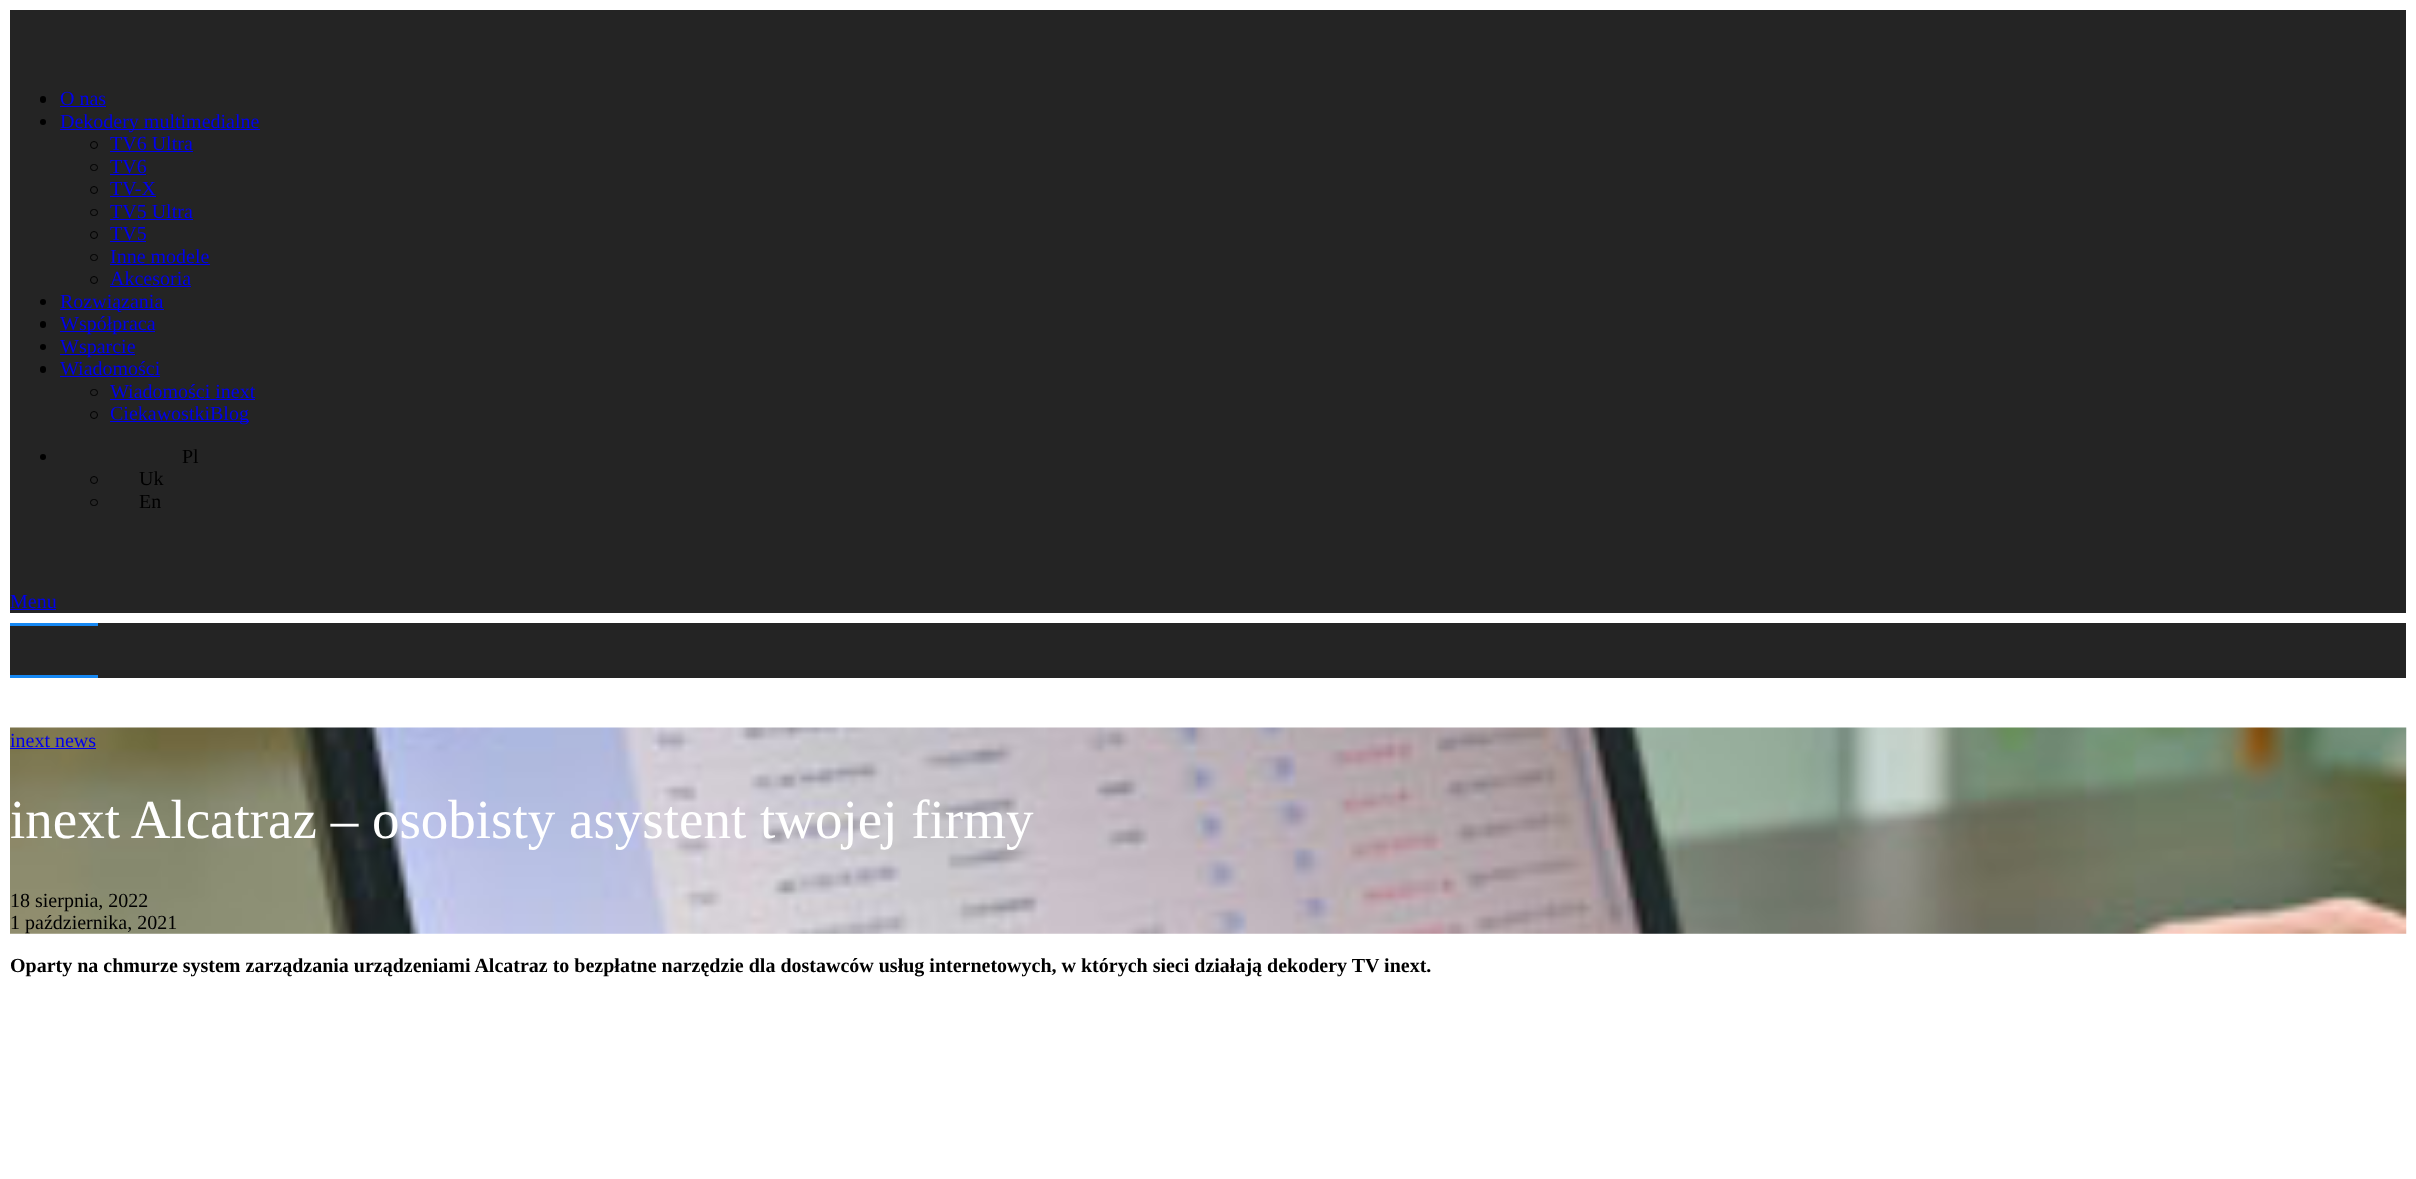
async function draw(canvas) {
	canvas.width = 2416;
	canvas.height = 1179;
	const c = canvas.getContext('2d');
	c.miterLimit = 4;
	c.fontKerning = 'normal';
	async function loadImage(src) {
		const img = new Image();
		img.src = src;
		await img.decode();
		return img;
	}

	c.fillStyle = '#fff';
	c.fillRect(0, 0, 2416, 1179);
	c.fillStyle = '#242424';
	c.fillRect(10, 10, 2396, 603);
	c.fillStyle = '#000';
	c.beginPath();
	c.roundRect(40, 96, 6, 7, 3);
	c.fill();
	c.font = '20px Liberation Serif';
	c.fillStyle = '#00e';
	c.fillText('O nas', 60, 105);
	c.fillRect(60, 106, 46, 1);
	c.fillStyle = '#000';
	c.beginPath();
	c.arc(43, 122, 3, 0, 2 * Math.PI);
	c.fill();
	c.fillStyle = '#00e';
	c.fillRect(60, 129, 200, 1);
	c.fillText('Dekodery multimedialne', 60, 128);
	c.beginPath();
	c.arc(94, 145, 3.5, 0, 2 * Math.PI);
	c.strokeStyle = '#000';
	c.stroke();
	c.fillText('TV6 Ultra', 110, 150);
	c.fillRect(110, 151, 83, 1);
	c.beginPath();
	c.roundRect(90.5, 164.5, 7, 6, 3);
	c.stroke();
	c.fillText('TV6', 110, 173);
	c.fillRect(110, 174, 36, 1);
	c.beginPath();
	c.arc(94, 190, 3.5, 0, 2 * Math.PI);
	c.stroke();
	c.fillText('TV-X', 110, 195);
	c.fillRect(110, 196, 46, 1);
	c.beginPath();
	c.roundRect(90.5, 209.5, 7, 6, 3);
	c.stroke();
	c.fillText('TV5 Ultra', 110, 218);
	c.fillRect(110, 219, 83, 1);
	c.beginPath();
	c.arc(94, 235, 3.5, 0, 2 * Math.PI);
	c.stroke();
	c.fillText('TV5', 110, 240);
	c.fillRect(110, 241, 36, 1);
	c.beginPath();
	c.roundRect(90.5, 254.5, 7, 6, 3);
	c.stroke();
	c.fillText('Inne modele', 110, 263);
	c.fillRect(110, 264, 100, 1);
	c.beginPath();
	c.arc(94, 280, 3.5, 0, 2 * Math.PI);
	c.stroke();
	c.fillText('Akcesoria', 110, 285);
	c.fillRect(110, 286, 81, 1);
	c.fillStyle = '#000';
	c.beginPath();
	c.arc(43, 302, 3, 0, 2 * Math.PI);
	c.fill();
	c.fillStyle = '#00e';
	c.fillRect(60, 309, 104, 1);
	c.fillText('Rozwiązania', 60, 308);
	c.fillStyle = '#000';
	c.beginPath();
	c.roundRect(40, 321, 6, 7, 3);
	c.fill();
	c.fillStyle = '#00e';
	c.fillRect(60, 331, 95, 1);
	c.fillText('Współpraca', 60, 330);
	c.fillStyle = '#000';
	c.beginPath();
	c.arc(43, 347, 3, 0, 2 * Math.PI);
	c.fill();
	c.fillStyle = '#00e';
	c.fillRect(60, 354, 75, 1);
	c.fillText('Wsparcie', 60, 353);
	c.fillStyle = '#000';
	c.beginPath();
	c.roundRect(40, 366, 6, 7, 3);
	c.fill();
	c.fillStyle = '#00e';
	c.fillText('Wiadomości', 60, 375);
	c.fillRect(60, 376, 100, 1);
	c.beginPath();
	c.roundRect(90.5, 389.5, 7, 6, 3);
	c.stroke();
	c.fillText('Wiadomości inext', 110, 398);
	c.fillRect(110, 399, 145, 1);
	c.beginPath();
	c.arc(94, 415, 3.5, 0, 2 * Math.PI);
	c.stroke();
	c.fillRect(110, 421, 139, 1);
	c.fillText('CiekawostkiBlog', 110, 420);
	c.fillStyle = '#000';
	c.beginPath();
	c.arc(43, 457, 3, 0, 2 * Math.PI);
	c.fill();
	c.fillText('Pl', 182, 463);
	c.beginPath();
	c.arc(94, 480, 3.5, 0, 2 * Math.PI);
	c.stroke();
	c.fillText('Uk', 139, 485);
	c.beginPath();
	c.roundRect(90.5, 499.5, 7, 6, 3);
	c.stroke();
	c.fillText('En', 139, 508);
	c.fillStyle = '#00e';
	c.fillText('Menu', 10, 608);
	for (const [x, y, w, h, color] of [
		[10, 609, 46, 1, '#00e'],
		[10, 623, 2396, 55, '#242424'],
		[10, 623, 88, 3, '#1688f3'],
		[10, 675, 88, 3, '#1688f3'],
	]) {
		c.fillStyle = color;
		c.fillRect(x, y, w, h);
	}
	c.drawImage(await loadImage('img1.png'), 10, 727, 2397, 207);
	c.fillStyle = '#00e';
	c.fillText('inext news', 10, 747);
	c.fillRect(10, 748, 86, 1);
	c.font = '55px Liberation Serif';
	c.fillStyle = '#fff';
	c.fillText('inext Alcatraz – osobisty asystent twojej firmy', 10, 838);
	c.font = '20px Liberation Serif';
	c.fillStyle = '#000';
	c.fillText('18 sierpnia, 2022', 10, 907);
	c.fillText('1 października, 2021', 10, 929);
	c.font = 'bold 20px Liberation Serif';
	c.fillText('Oparty na chmurze system zarządzania urządzeniami Alcatraz to bezpłatne narzędzie dla dostawców usług internetowych, w których sieci działają dekodery TV inext.', 10, 972);
}

draw(document.querySelector('canvas'));
